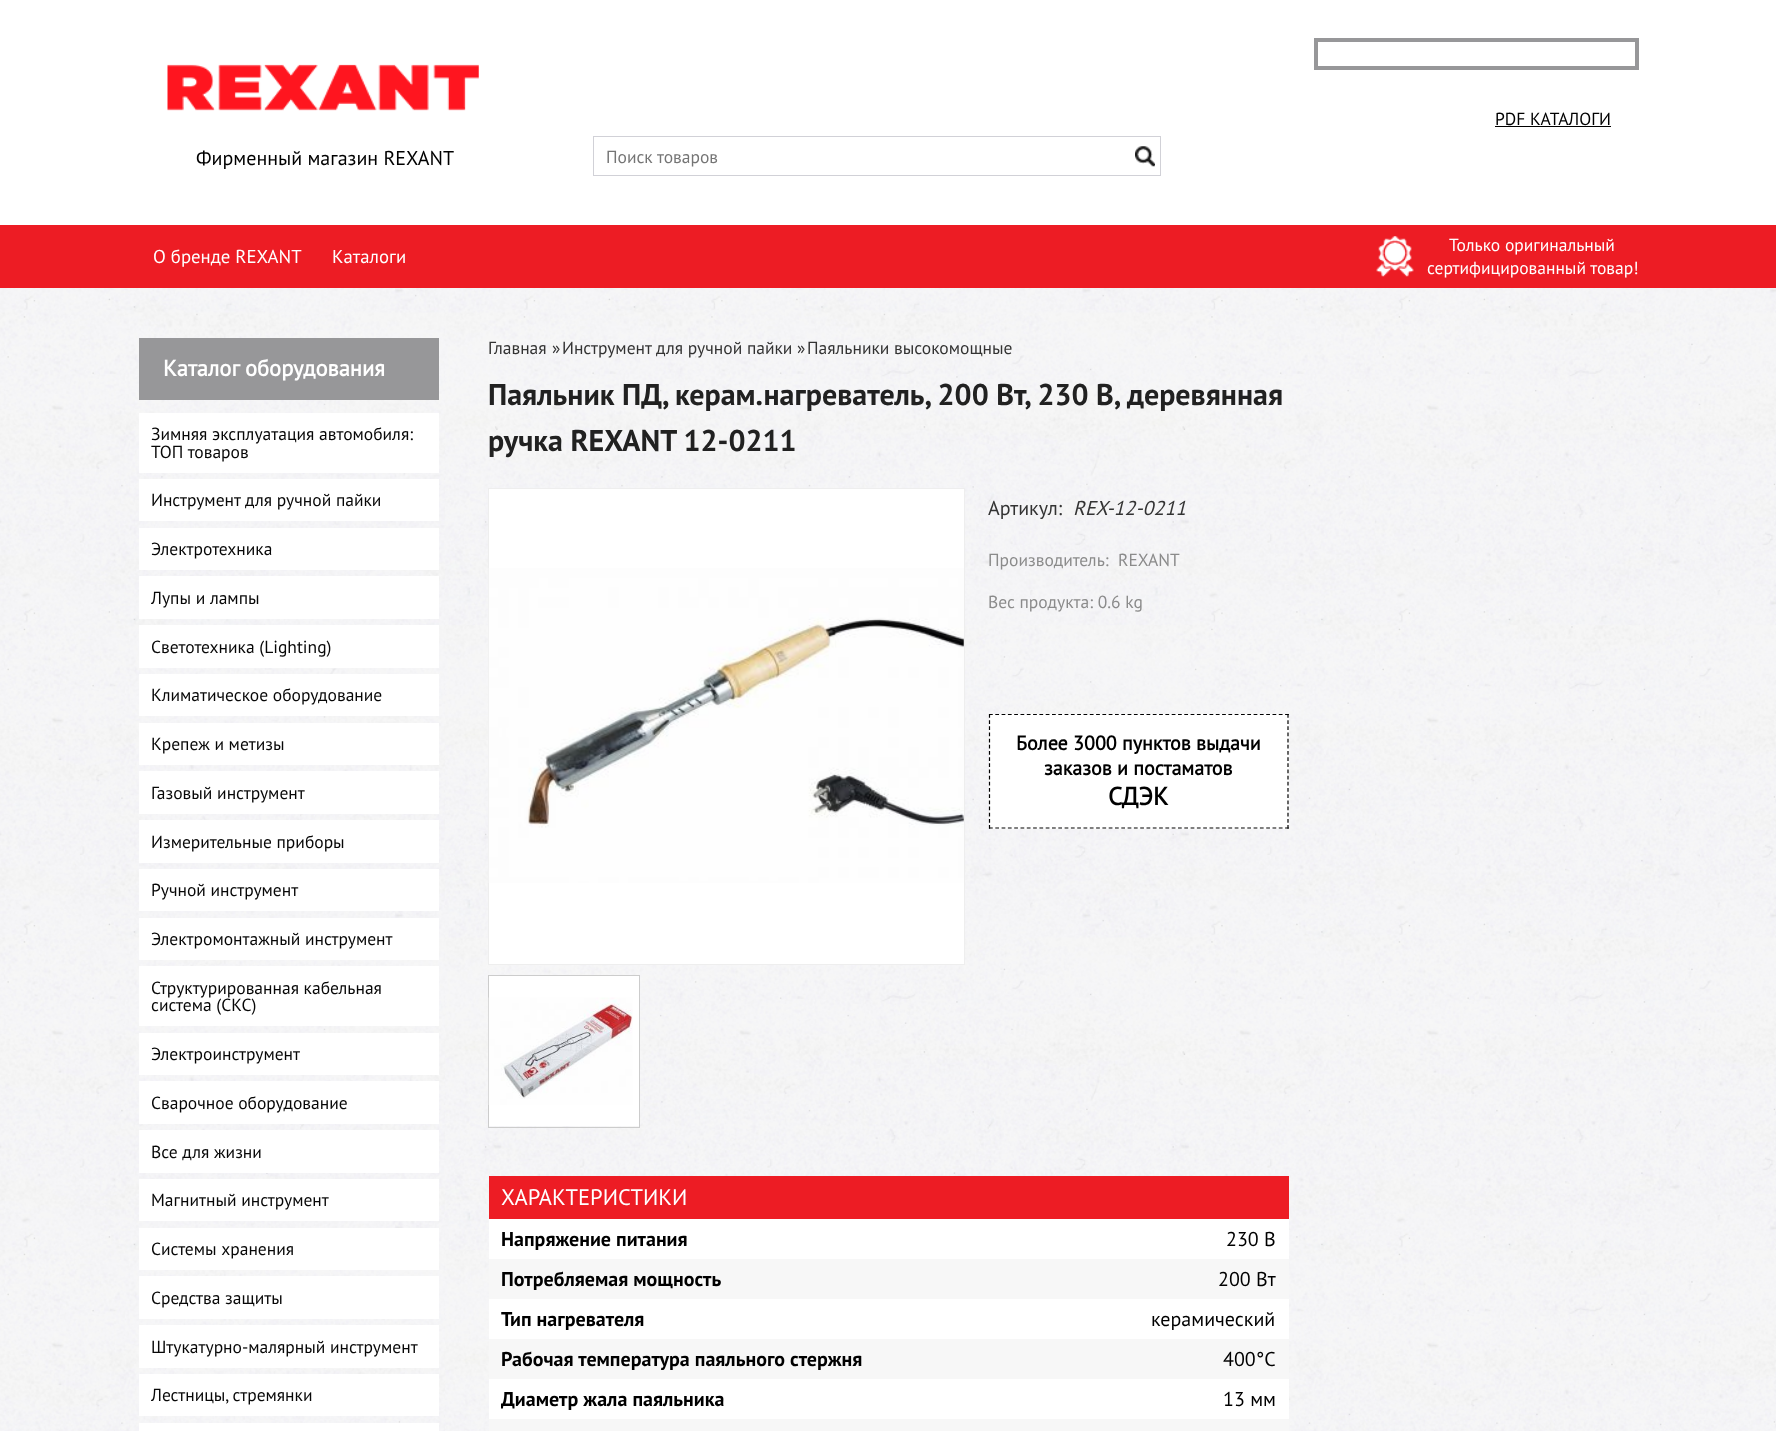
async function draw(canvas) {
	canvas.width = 1776;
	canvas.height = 1431;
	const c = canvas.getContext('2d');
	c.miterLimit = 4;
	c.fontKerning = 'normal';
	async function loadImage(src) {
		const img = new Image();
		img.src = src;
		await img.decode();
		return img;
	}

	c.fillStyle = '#fff';
	c.fillRect(0, 0, 1776, 1431);
	c.drawImage(await loadImage('img1.png'), 0, 288, 1776, 1143);
	c.strokeStyle = '#979799';
	c.lineWidth = 4;
	c.strokeRect(1316, 40, 321, 28);
	c.font = '17.5px PT Sans';
	c.fillStyle = '#000';
	c.fillText('PDF КАТАЛОГИ', 1495, 125);
	c.fillRect(1495, 126, 116, 1);
	c.drawImage(await loadImage('img2.png'), 167, 64, 312, 47);
	c.font = '20px PT Sans';
	c.fillText('Фирменный магазин REXANT', 196, 165);
	c.strokeStyle = '#d1d1d7';
	c.lineWidth = 1;
	c.strokeRect(593.5, 136.5, 567, 39);
	c.font = '17.5px PT Sans';
	c.fillStyle = '#757575';
	c.fillText('Поиск товаров', 606, 163);
	c.drawImage(await loadImage('img3.png'), 1135, 146, 20, 21);
	c.fillStyle = '#ed1c24';
	c.fillRect(0, 225, 1776, 63);
	c.font = '18.75px PT Sans';
	c.fillStyle = '#fff';
	c.fillText('О бренде REXANT', 153, 263);
	c.fillText('Каталоги', 332, 263);
	c.drawImage(await loadImage('img4.png'), 1376, 236, 38, 41);
	c.font = '17.5px PT Sans';
	c.fillText('Только оригинальный', 1449, 251);
	c.fillText('сертифицированный товар!', 1427, 274);
	c.fillStyle = '#979799';
	c.fillRect(139, 338, 300, 62);
	c.font = 'bold 22.5px PT Sans';
	c.fillStyle = '#fff';
	c.fillText('Каталог оборудования', 163, 376);
	c.fillRect(139, 413, 300, 60);
	c.font = '17.5px PT Sans';
	c.fillStyle = '#070707';
	c.fillText('Зимняя эксплуатация автомобиля:', 151, 440);
	c.fillText('ТОП товаров', 151, 458);
	c.fillStyle = '#fff';
	c.fillRect(139, 479, 300, 42);
	c.fillStyle = '#070707';
	c.fillText('Инструмент для ручной пайки', 151, 506);
	c.fillStyle = '#fff';
	c.fillRect(139, 528, 300, 42);
	c.fillStyle = '#070707';
	c.fillText('Электротехника', 151, 555);
	c.fillStyle = '#fff';
	c.fillRect(139, 576, 300, 43);
	c.fillStyle = '#070707';
	c.fillText('Лупы и лампы', 151, 604);
	c.fillStyle = '#fff';
	c.fillRect(139, 625, 300, 43);
	c.fillStyle = '#070707';
	c.fillText('Светотехника (Lighting)', 151, 653);
	c.fillStyle = '#fff';
	c.fillRect(139, 674, 300, 42);
	c.fillStyle = '#070707';
	c.fillText('Климатическое оборудование', 151, 701);
	c.fillStyle = '#fff';
	c.fillRect(139, 723, 300, 42);
	c.fillStyle = '#070707';
	c.fillText('Крепеж и метизы', 151, 750);
	c.fillStyle = '#fff';
	c.fillRect(139, 771, 300, 43);
	c.fillStyle = '#070707';
	c.fillText('Газовый инструмент', 151, 799);
	c.fillStyle = '#fff';
	c.fillRect(139, 820, 300, 43);
	c.fillStyle = '#070707';
	c.fillText('Измерительные приборы', 151, 848);
	c.fillStyle = '#fff';
	c.fillRect(139, 869, 300, 42);
	c.fillStyle = '#070707';
	c.fillText('Ручной инструмент', 151, 896);
	c.fillStyle = '#fff';
	c.fillRect(139, 918, 300, 42);
	c.fillStyle = '#070707';
	c.fillText('Электромонтажный инструмент', 151, 945);
	c.fillStyle = '#fff';
	c.fillRect(139, 966, 300, 60);
	c.fillStyle = '#070707';
	c.fillText('Структурированная кабельная', 151, 994);
	c.fillText('система (СКС)', 151, 1011);
	c.fillStyle = '#fff';
	c.fillRect(139, 1033, 300, 42);
	c.fillStyle = '#070707';
	c.fillText('Электроинструмент', 151, 1060);
	c.fillStyle = '#fff';
	c.fillRect(139, 1081, 300, 43);
	c.fillStyle = '#070707';
	c.fillText('Сварочное оборудование', 151, 1109);
	c.fillStyle = '#fff';
	c.fillRect(139, 1130, 300, 43);
	c.fillStyle = '#070707';
	c.fillText('Все для жизни', 151, 1158);
	c.fillStyle = '#fff';
	c.fillRect(139, 1179, 300, 42);
	c.fillStyle = '#070707';
	c.fillText('Магнитный инструмент', 151, 1206);
	c.fillStyle = '#fff';
	c.fillRect(139, 1228, 300, 42);
	c.fillStyle = '#070707';
	c.fillText('Системы хранения', 151, 1255);
	c.fillStyle = '#fff';
	c.fillRect(139, 1276, 300, 43);
	c.fillStyle = '#070707';
	c.fillText('Средства защиты', 151, 1304);
	c.fillStyle = '#fff';
	c.fillRect(139, 1325, 300, 43);
	c.fillStyle = '#070707';
	c.fillText('Штукатурно-малярный инструмент', 151, 1353);
	c.fillStyle = '#fff';
	c.fillRect(139, 1374, 300, 42);
	c.fillStyle = '#070707';
	c.fillText('Лестницы, стремянки', 151, 1401);
	c.fillStyle = '#fff';
	c.fillRect(139, 1423, 300, 8);
	c.fillStyle = '#333';
	for (const [text, x, y] of [
		['Главная', 488, 354],
		['»', 552, 354],
		['Инструмент для ручной пайки', 562, 354],
		['»', 797, 354],
		['Паяльники высокомощные', 807, 354],
	]) {
		c.fillText(text, x, y);
	}
	c.font = 'bold 30px "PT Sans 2"';
	c.fillStyle = '#212121';
	c.fillText('Паяльник ПД, керам.нагреватель, 200 Вт, 230 В, деревянная', 488, 405);
	c.fillText('ручка REXANT 12-0211', 488, 451);
	c.strokeStyle = '#eee';
	c.strokeRect(488.5, 488.5, 476, 476);
	c.fillStyle = '#fff';
	c.fillRect(489, 489, 475, 475);
	c.drawImage(await loadImage('img5.png'), 488, 568, 476, 315);
	c.strokeStyle = '#ccc';
	c.strokeRect(488.5, 975.5, 151, 152);
	c.fillRect(489, 976, 150, 150);
	c.drawImage(await loadImage('img6.png'), 488, 997, 145, 108);
	c.font = '20px PT Sans';
	c.fillStyle = '#333';
	c.fillText('Артикул:', 988, 515);
	c.font = 'italic 20px PT Sans';
	c.fillText('REX-12-0211', 1073, 515);
	c.font = '17.5px PT Sans';
	c.fillStyle = '#8b8b8b';
	for (const [text, x, y] of [
		['Производитель:', 988, 566],
		['REXANT', 1118, 566],
		['Вес продукта: 0.6 kg', 988, 608],
	]) {
		c.fillText(text, x, y);
	}
	c.fillStyle = '#fff';
	c.fillRect(989, 714, 300, 115);
	c.beginPath();
	c.moveTo(989, 714.5);
	c.lineTo(1289, 714.5);
	c.strokeStyle = '#010101';
	c.lineWidth = 1.2;
	c.setLineDash([3.75, 2.55]);
	c.stroke();
	c.beginPath();
	c.moveTo(1288, 714);
	c.lineTo(1288, 829);
	c.setLineDash([3.75, 2.42]);
	c.stroke();
	c.beginPath();
	c.moveTo(989, 828);
	c.lineTo(1289, 828);
	c.setLineDash([3.75, 2.55]);
	c.stroke();
	c.beginPath();
	c.moveTo(989.5, 714);
	c.lineTo(989.5, 829);
	c.setLineDash([3.75, 2.42]);
	c.stroke();
	c.font = 'bold 20px PT Sans';
	c.fillStyle = '#000';
	c.fillText('Более 3000 пунктов выдачи', 1016, 750);
	c.fillText('заказов и постаматов', 1044, 775);
	c.font = 'bold 25px PT Sans';
	c.fillText('СДЭК', 1108, 805);
	c.fillStyle = '#ed1c24';
	c.fillRect(489, 1176, 800, 43);
	c.font = '22.5px PT Sans';
	c.fillStyle = '#fff';
	c.fillText('ХАРАКТЕРИСТИКИ', 501, 1205);
	c.fillRect(489, 1219, 800, 200);
	c.font = 'bold 20px "PT Sans 2"';
	c.fillStyle = '#000';
	c.fillText('Напряжение питания', 501, 1246);
	c.font = '20px PT Sans';
	c.fillText('230 В', 1226, 1246);
	c.fillStyle = '#f7f7f7';
	c.fillRect(489, 1259, 800, 40);
	c.font = 'bold 20px "PT Sans 2"';
	c.fillStyle = '#000';
	c.fillText('Потребляемая мощность', 501, 1286);
	c.font = '20px PT Sans';
	c.fillText('200 Вт', 1218, 1286);
	c.font = 'bold 20px "PT Sans 2"';
	c.fillText('Тип нагревателя', 501, 1326);
	c.font = '20px PT Sans';
	c.fillText('керамический', 1151, 1326);
	c.fillStyle = '#f7f7f7';
	c.fillRect(489, 1339, 800, 40);
	c.font = 'bold 20px "PT Sans 2"';
	c.fillStyle = '#000';
	c.fillText('Рабочая температура паяльного стержня', 501, 1366);
	c.font = '20px PT Sans';
	c.fillText('400°C', 1223, 1366);
	c.font = 'bold 20px "PT Sans 2"';
	c.fillText('Диаметр жала паяльника', 501, 1406);
	c.font = '20px PT Sans';
	c.fillText('13 мм', 1223, 1406);
	c.fillStyle = '#f7f7f7';
	c.fillRect(489, 1419, 800, 12);
}

draw(document.querySelector('canvas'));
